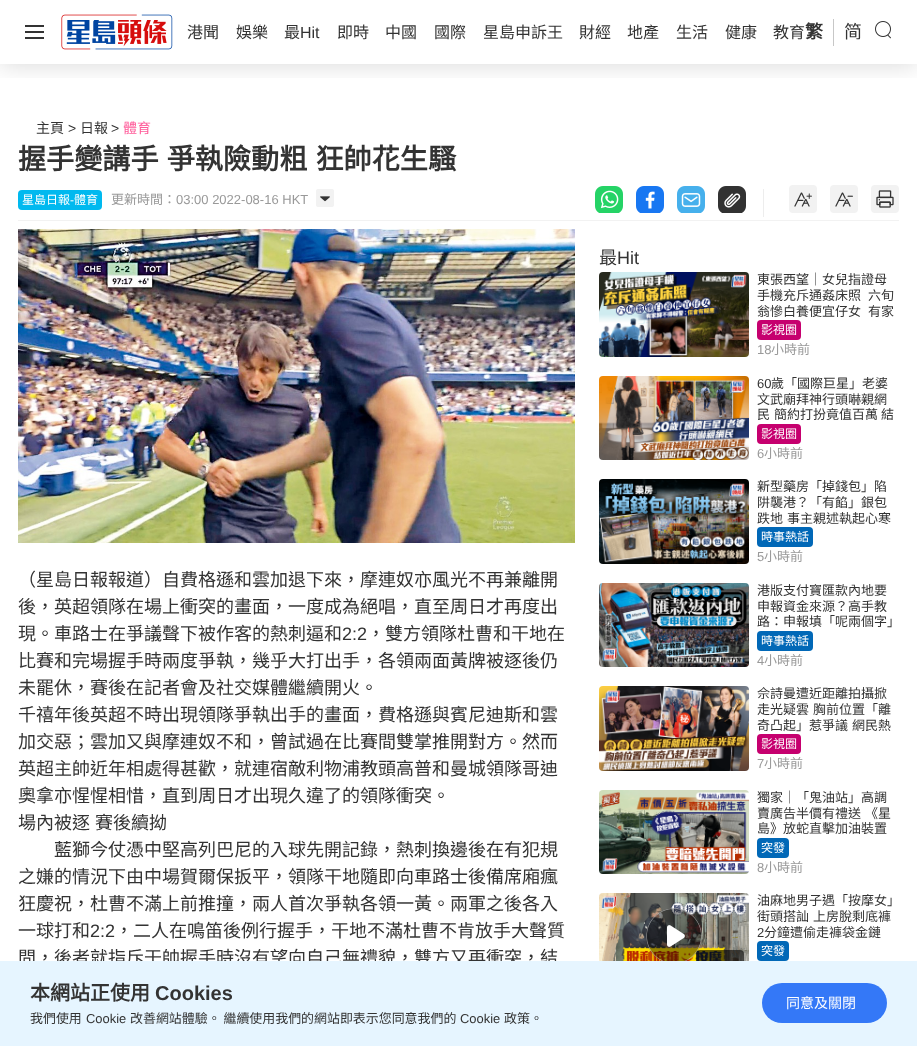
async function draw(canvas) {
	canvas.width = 917;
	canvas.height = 1046;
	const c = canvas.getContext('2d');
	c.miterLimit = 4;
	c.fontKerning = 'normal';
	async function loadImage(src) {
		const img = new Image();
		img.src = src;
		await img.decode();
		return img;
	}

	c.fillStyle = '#fff';
	c.fillRect(0, 0, 917, 1046);
	c.save();
	c.beginPath();
	c.rect(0, 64, 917, 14);
	c.clip();
	c.fillStyle = '#00000026';
	c.filter = 'blur(12px)';
	c.beginPath();
	c.rect(0, 1, 917, 64);
	c.fill();
	c.filter = 'none';
	c.restore();
	for (const [x, y, w, h, color] of [
		[25, 25, 19, 2, '#333'],
		[25, 31, 19, 2, '#333'],
		[25, 37, 19, 2, '#333'],
	]) {
		c.fillStyle = color;
		c.fillRect(x, y, w, h);
	}
	c.drawImage(await loadImage('img1.png'), 61, 14, 112, 36);
	c.font = '16px Noto Sans CJK HK';
	for (const [text, x, y] of [
		['港聞', 187, 38],
		['娛樂', 236, 38],
		['最', 284, 38],
	]) {
		c.fillText(text, x, y);
	}
	c.font = '16px Liberation Sans';
	c.fillText('Hit', 300, 38);
	c.font = '16px Noto Sans CJK HK';
	for (const [text, x, y] of [
		['即時', 337, 38],
		['中國', 385, 38],
		['國際', 434, 38],
		['星島申訴王', 483, 38],
		['財經', 579, 38],
		['地產', 627, 38],
		['生活', 676, 38],
		['健康', 725, 38],
		['教育', 773, 38],
	]) {
		c.fillText(text, x, y);
	}
	c.fillStyle = '#c7c7c7';
	c.fillRect(833, 19, 1, 27);
	c.font = 'bold 18px Noto Sans CJK HK';
	c.fillStyle = '#333';
	c.fillText('繁', 805, 38);
	c.font = '18px Noto Sans CJK HK';
	c.fillText('简', 844, 38);
	c.drawImage(await loadImage('img2.png'), 875, 21, 16, 18);
	c.font = '14px Noto Sans CJK HK';
	c.fillText('主頁', 36, 133);
	c.font = '14px Liberation Sans';
	c.fillText('>', 68, 133);
	c.font = '14px Noto Sans CJK HK';
	c.fillText('日報', 80, 133);
	c.font = '14px Liberation Sans';
	c.fillText('>', 111, 133);
	c.font = '14px Noto Sans CJK HK';
	c.fillStyle = '#ff5a99';
	c.fillText('體育', 123, 133);
	c.wordSpacing = '2px';
	c.font = 'bold 28.1px Noto Sans CJK HK';
	c.fillStyle = '#333';
	c.fillText('握手變講手 爭執險動粗 狂帥花生騷', 18, 169);
	c.fillStyle = '#f2f2f2';
	c.fillRect(18, 220, 881, 1);
	c.fillStyle = '#00b9ef';
	c.beginPath();
	c.roundRect(18, 190, 84, 20, 4);
	c.fill();
	c.wordSpacing = '0px';
	c.font = '12px Noto Sans CJK HK';
	c.fillStyle = '#fff';
	c.fillText('星島日報', 22, 204);
	c.font = '12px Liberation Sans';
	c.fillText('-', 70, 204);
	c.font = '12px Noto Sans CJK HK';
	c.fillText('體育', 74, 204);
	c.font = '13px Noto Sans CJK HK';
	c.fillStyle = '#999';
	c.fillText('更新時間：', 111, 204);
	c.font = '13px Liberation Sans';
	c.fillText('03:00 2022-08-16 HKT', 176, 204);
	c.drawImage(await loadImage('img3.png'), 316, 189, 18, 18);
	c.drawImage(await loadImage('img4.png'), 595, 186, 28, 27);
	c.drawImage(await loadImage('img5.png'), 636, 186, 28, 27);
	c.drawImage(await loadImage('img6.png'), 677, 186, 28, 27);
	c.drawImage(await loadImage('img7.png'), 718, 186, 28, 27);
	c.fillStyle = '#ededed';
	c.fillRect(763, 189, 1, 28);
	c.fillStyle = '#f2f2f2';
	c.beginPath();
	c.roundRect(789, 185, 28, 28, 4);
	c.fill();
	c.drawImage(await loadImage('img8.png'), 794, 192, 18, 15);
	c.beginPath();
	c.roundRect(830, 185, 28, 28, 4);
	c.fill();
	c.drawImage(await loadImage('img9.png'), 835, 192, 18, 15);
	c.beginPath();
	c.roundRect(871, 185, 28, 28, 4);
	c.fill();
	c.drawImage(await loadImage('img10.png'), 876, 190, 18, 18);
	c.drawImage(await loadImage('img11.png'), 18, 229, 557, 314);
	c.font = '18px Noto Sans CJK HK';
	c.fillStyle = '#333';
	for (const [text, x, y] of [
		['（星島日報報道）自費格遜和雲加退下來，摩連奴亦風光不再兼離開', 18, 586],
		['後，英超領隊在場上衝突的畫面，一度成為絕唱，直至周日才再度出', 18, 613],
		['現。車路士在爭議聲下被作客的熱刺逼和', 18, 640],
	]) {
		c.fillText(text, x, y);
	}
	c.font = '18px Liberation Sans';
	c.fillText('2:2', 342, 640);
	c.font = '18px Noto Sans CJK HK';
	for (const [text, x, y] of [
		['，雙方領隊杜曹和干地在', 367, 640],
		['比賽和完場握手時兩度爭執，幾乎大打出手，各領兩面黃牌被逐後仍', 18, 667],
		['未罷休，賽後在記者會及社交媒體繼續開火。', 18, 694],
		['千禧年後英超不時出現領隊爭執出手的畫面，費格遜與賓尼迪斯和雲', 18, 721],
		['加交惡；雲加又與摩連奴不和，曾試過在比賽間雙掌推開對方。然而', 18, 748],
		['英超主帥近年相處得甚歡，就連宿敵利物浦教頭高普和曼城領隊哥迪', 18, 775],
		['奧拿亦惺惺相惜，直到周日才出現久違了的領隊衝突。', 18, 802],
	]) {
		c.fillText(text, x, y);
	}
	c.wordSpacing = '1px';
	c.fillText('場內被逐 賽後續拗', 18, 829);
	c.wordSpacing = '0px';
	for (const [text, x, y] of [
		['藍獅今仗憑中堅高列巴尼的入球先開記錄，熱刺換邊後在有犯規', 54, 856],
		['之嫌的情況下由中場賀爾保扳平，領隊干地隨即向車路士後備席廂瘋', 18, 883],
		['狂慶祝，杜曹不滿上前推撞，兩人首次爭執各領一黃。兩軍之後各入', 18, 910],
		['一球打和', 18, 937],
	]) {
		c.fillText(text, x, y);
	}
	c.font = '18px Liberation Sans';
	c.fillText('2:2', 90, 937);
	c.font = '18px Noto Sans CJK HK';
	for (const [text, x, y] of [
		['，二人在鳴笛後例行握手，干地不滿杜曹不肯放手大聲質', 115, 937],
		['問，後者就指斥干帥握手時沒有望向自己無禮貌，雙方又再衝突，結', 18, 964],
		['最', 599, 264],
	]) {
		c.fillText(text, x, y);
	}
	c.font = '18px Liberation Sans';
	c.fillText('Hit', 617, 264);
	c.drawImage(await loadImage('img12.png'), 599, 272, 150, 85);
	c.font = '13px Noto Sans CJK HK';
	for (const [text, x, y] of [
		['東張西望｜女兒指證母', 757, 284],
		['手機充斥通姦床照', 757, 300],
		['六旬', 868, 300],
		['翁慘白養便宜仔女', 757, 316],
		['有家', 868, 316],
	]) {
		c.fillText(text, x, y);
	}
	c.fillStyle = '#c6006f';
	c.beginPath();
	c.roundRect(757, 320, 44, 20, 4);
	c.fill();
	c.font = '12px Noto Sans CJK HK';
	c.fillStyle = '#fff';
	c.fillText('影視圈', 761, 334);
	c.font = '13px Liberation Sans';
	c.fillStyle = '#999';
	c.fillText('18', 757, 354);
	c.font = '13px Noto Sans CJK HK';
	c.fillText('小時前', 771, 354);
	c.drawImage(await loadImage('img13.png'), 599, 376, 150, 84);
	c.font = '13px Liberation Sans';
	c.fillStyle = '#333';
	c.fillText('60', 757, 388);
	c.font = '13px Noto Sans CJK HK';
	for (const [text, x, y] of [
		['歲「國際巨星」老婆', 771, 388],
		['文武廟拜神行頭嚇親網', 757, 404],
		['民', 757, 419],
		['簡約打扮竟值百萬', 774, 419],
		['結', 881, 419],
	]) {
		c.fillText(text, x, y);
	}
	c.fillStyle = '#c6006f';
	c.beginPath();
	c.roundRect(757, 424, 44, 20, 4);
	c.fill();
	c.font = '12px Noto Sans CJK HK';
	c.fillStyle = '#fff';
	c.fillText('影視圈', 761, 438);
	c.font = '13px Liberation Sans';
	c.fillStyle = '#999';
	c.fillText('6', 757, 458);
	c.font = '13px Noto Sans CJK HK';
	c.fillText('小時前', 764, 458);
	c.drawImage(await loadImage('img14.png'), 599, 479, 150, 85);
	c.fillStyle = '#333';
	c.fillText('新型藥房「掉錢包」陷', 757, 491);
	c.fillText('阱襲港？「有餡」銀包', 757, 507);
	c.wordSpacing = '1px';
	c.fillText('跌地 事主親述執起心寒', 757, 523);
	c.fillStyle = '#0168b7';
	c.beginPath();
	c.roundRect(757, 527, 56, 20, 4);
	c.fill();
	c.wordSpacing = '0px';
	c.font = '12px Noto Sans CJK HK';
	c.fillStyle = '#fff';
	c.fillText('時事熱話', 761, 541);
	c.font = '13px Liberation Sans';
	c.fillStyle = '#999';
	c.fillText('5', 757, 561);
	c.font = '13px Noto Sans CJK HK';
	c.fillText('小時前', 764, 561);
	c.drawImage(await loadImage('img15.png'), 599, 583, 150, 84);
	c.fillStyle = '#333';
	for (const [text, x, y] of [
		['港版支付寶匯款內地要', 757, 595],
		['申報資金來源？高手教', 757, 611],
		['路：申報填「呢兩個字」', 757, 626],
	]) {
		c.fillText(text, x, y);
	}
	c.fillStyle = '#0168b7';
	c.beginPath();
	c.roundRect(757, 631, 56, 20, 4);
	c.fill();
	c.font = '12px Noto Sans CJK HK';
	c.fillStyle = '#fff';
	c.fillText('時事熱話', 761, 645);
	c.font = '13px Liberation Sans';
	c.fillStyle = '#999';
	c.fillText('4', 757, 665);
	c.font = '13px Noto Sans CJK HK';
	c.fillText('小時前', 764, 665);
	c.drawImage(await loadImage('img16.png'), 599, 686, 150, 85);
	c.fillStyle = '#333';
	c.fillText('佘詩曼遭近距離拍攝掀', 757, 698);
	c.wordSpacing = '1px';
	c.fillText('走光疑雲 胸前位置「離', 757, 714);
	c.fillText('奇凸起」惹爭議 網民熱', 757, 730);
	c.fillStyle = '#c6006f';
	c.beginPath();
	c.roundRect(757, 734, 44, 20, 4);
	c.fill();
	c.wordSpacing = '0px';
	c.font = '12px Noto Sans CJK HK';
	c.fillStyle = '#fff';
	c.fillText('影視圈', 761, 748);
	c.font = '13px Liberation Sans';
	c.fillStyle = '#999';
	c.fillText('7', 757, 768);
	c.font = '13px Noto Sans CJK HK';
	c.fillText('小時前', 764, 768);
	c.drawImage(await loadImage('img17.png'), 599, 790, 150, 84);
	c.fillStyle = '#333';
	c.fillText('獨家｜「鬼油站」高調', 757, 802);
	c.wordSpacing = '1px';
	c.fillText('賣廣告半價有禮送 《星', 757, 818);
	c.wordSpacing = '0px';
	c.fillText('島》放蛇直擊加油裝置', 757, 833);
	c.fillStyle = '#0168b7';
	c.beginPath();
	c.roundRect(757, 838, 32, 20, 4);
	c.fill();
	c.font = '12px Noto Sans CJK HK';
	c.fillStyle = '#fff';
	c.fillText('突發', 761, 852);
	c.font = '13px Liberation Sans';
	c.fillStyle = '#999';
	c.fillText('8', 757, 872);
	c.font = '13px Noto Sans CJK HK';
	c.fillText('小時前', 764, 872);
	c.drawImage(await loadImage('img18.png'), 599, 893, 150, 68);
	c.drawImage(await loadImage('img19.png'), 646, 908, 56, 53);
	c.fillStyle = '#00000099';
	c.beginPath();
	c.roundRect(696, 950, 48, 24, 4);
	c.fill();
	c.fillStyle = '#333';
	c.fillText('油麻地男子遇「按摩女」', 757, 905);
	c.wordSpacing = '1px';
	c.fillText('街頭搭訕 上房脫剩底褲', 757, 921);
	c.wordSpacing = '0px';
	c.font = '13px Liberation Sans';
	c.fillText('2', 757, 937);
	c.font = '13px Noto Sans CJK HK';
	c.fillText('分鐘遭偷走褲袋金鏈', 764, 937);
	c.fillStyle = '#0168b7';
	c.beginPath();
	c.roundRect(757, 941, 32, 20, 4);
	c.fill();
	c.font = '12px Noto Sans CJK HK';
	c.fillStyle = '#fff';
	c.fillText('突發', 761, 955);
	c.fillStyle = '#e6f5ff';
	c.fillRect(0, 961, 917, 85);
	c.font = 'bold 20px Noto Sans CJK HK';
	c.fillStyle = '#333';
	c.fillText('本網站正使用', 30, 1000);
	c.font = 'bold 20px Liberation Sans';
	c.fillText('Cookies', 155, 1000);
	c.font = '12.95px Noto Sans CJK HK';
	c.fillText('我們使用', 30, 1023);
	c.font = '12.95px Liberation Sans';
	c.fillText('Cookie', 86, 1023);
	c.font = '12.95px Noto Sans CJK HK';
	c.fillText('改善網站體驗。 繼續使用我們的網站即表示您同意我們的', 130, 1023);
	c.font = '12.95px Liberation Sans';
	c.fillText('Cookie', 460, 1023);
	c.font = '12.95px Noto Sans CJK HK';
	c.fillText('政策。', 504, 1023);
	c.fillStyle = '#3478f7';
	c.beginPath();
	c.roundRect(762, 983, 125, 40, 20);
	c.fill();
	c.font = '14px Noto Sans CJK HK';
	c.fillStyle = '#fff';
	c.fillText('同意及關閉', 786, 1008);
}

draw(document.querySelector('canvas'));
